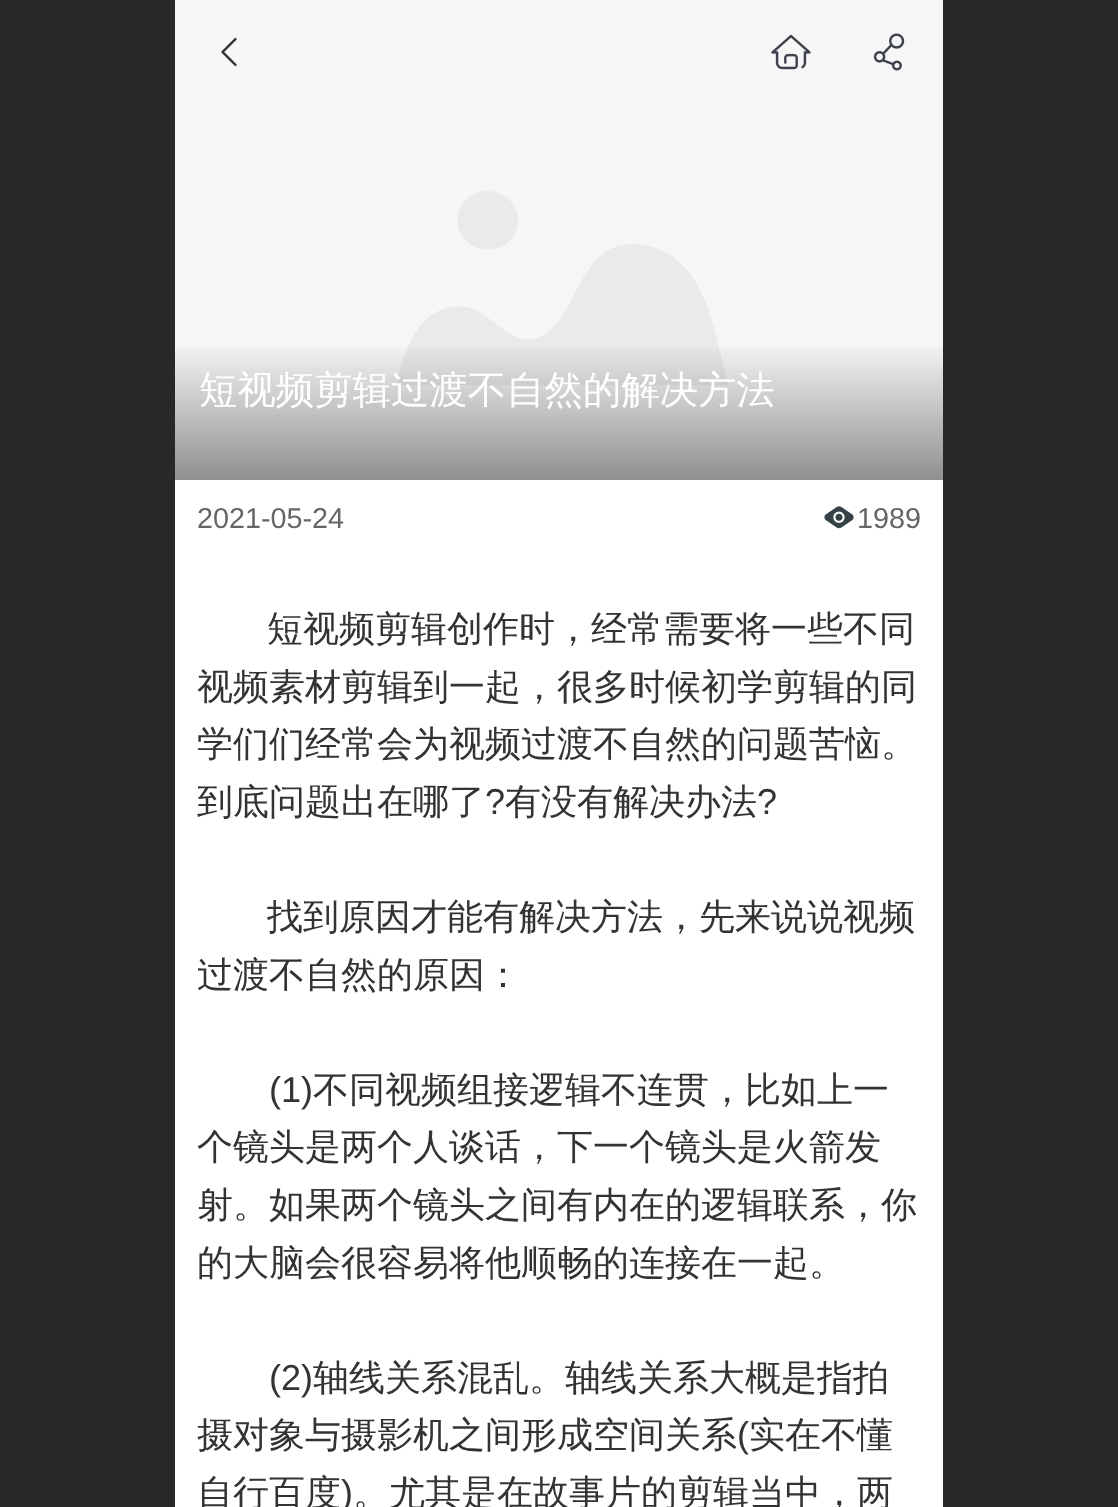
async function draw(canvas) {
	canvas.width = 1118;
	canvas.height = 1507;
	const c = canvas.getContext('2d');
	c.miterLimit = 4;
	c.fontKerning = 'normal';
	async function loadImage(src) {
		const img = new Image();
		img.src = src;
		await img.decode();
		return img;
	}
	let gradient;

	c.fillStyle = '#fff';
	c.fillRect(0, 0, 1118, 1507);
	c.fillStyle = '#282828';
	c.fillRect(0, 0, 175, 1507);
	c.drawImage(await loadImage('img4.png'), 175, 0, 768, 480);
	c.drawImage(await loadImage('img1.png'), 221, 37, 16, 30);
	c.drawImage(await loadImage('img2.png'), 771, 34, 40, 36);
	c.drawImage(await loadImage('img3.png'), 873, 33, 32, 38);
	gradient = c.createLinearGradient(559, 341, 559, 480);
	gradient.addColorStop(0, '#2a2a2a00');
	gradient.addColorStop(1, '#2a2a2a80');
	c.fillStyle = gradient;
	c.fillRect(175, 347, 768, 133);
	c.font = '500 38.4px WenQuanYi Zen Hei';
	c.fillStyle = '#fff';
	c.fillText('短视频剪辑过渡不自然的解决方法', 199, 403);
	c.font = '28.75px Liberation Sans';
	c.fillStyle = '#666';
	c.fillText('2021-05-24', 197, 528);
	c.drawImage(await loadImage('img5.png'), 824, 506, 30, 23);
	c.fillText('1989', 857, 528);
	c.font = '500 36px WenQuanYi Zen Hei';
	c.fillStyle = '#333';
	for (const [text, x, y] of [
		['短视频剪辑创作时，经常需要将一些不同', 267, 641],
		['视频素材剪辑到一起，很多时候初学剪辑的同', 197, 699],
		['学们们经常会为视频过渡不自然的问题苦恼。', 197, 756],
		['到底问题出在哪了', 197, 814],
	]) {
		c.fillText(text, x, y);
	}
	c.font = '36px Liberation Sans';
	c.fillText('?', 485, 814);
	c.font = '500 36px WenQuanYi Zen Hei';
	c.fillText('有没有解决办法', 505, 814);
	c.font = '36px Liberation Sans';
	c.fillText('?', 757, 814);
	c.font = '500 36px WenQuanYi Zen Hei';
	c.fillText('找到原因才能有解决方法，先来说说视频', 267, 929);
	c.fillText('过渡不自然的原因：', 197, 987);
	c.font = '36px Liberation Sans';
	c.fillText('(1)', 269, 1102);
	c.font = '500 36px WenQuanYi Zen Hei';
	for (const [text, x, y] of [
		['不同视频组接逻辑不连贯，比如上一', 313, 1102],
		['个镜头是两个人谈话，下一个镜头是火箭发', 197, 1159],
		['射。如果两个镜头之间有内在的逻辑联系，你', 197, 1217],
		['的大脑会很容易将他顺畅的连接在一起。', 197, 1275],
	]) {
		c.fillText(text, x, y);
	}
	c.font = '36px Liberation Sans';
	c.fillText('(2)', 269, 1390);
	c.font = '500 36px WenQuanYi Zen Hei';
	c.fillText('轴线关系混乱。轴线关系大概是指拍', 313, 1390);
	c.fillText('摄对象与摄影机之间形成空间关系', 197, 1447);
	c.font = '36px Liberation Sans';
	c.fillText('(', 737, 1447);
	c.font = '500 36px WenQuanYi Zen Hei';
	c.fillText('实在不懂', 749, 1447);
	c.fillText('自行百度', 197, 1505);
	c.font = '36px Liberation Sans';
	c.fillText(')', 341, 1505);
	c.font = '500 36px WenQuanYi Zen Hei';
	c.fillText('。尤其是在故事片的剪辑当中，两', 353, 1505);
	c.fillStyle = '#282828';
	c.fillRect(943, 0, 175, 1507);
}

draw(document.querySelector('canvas'));
